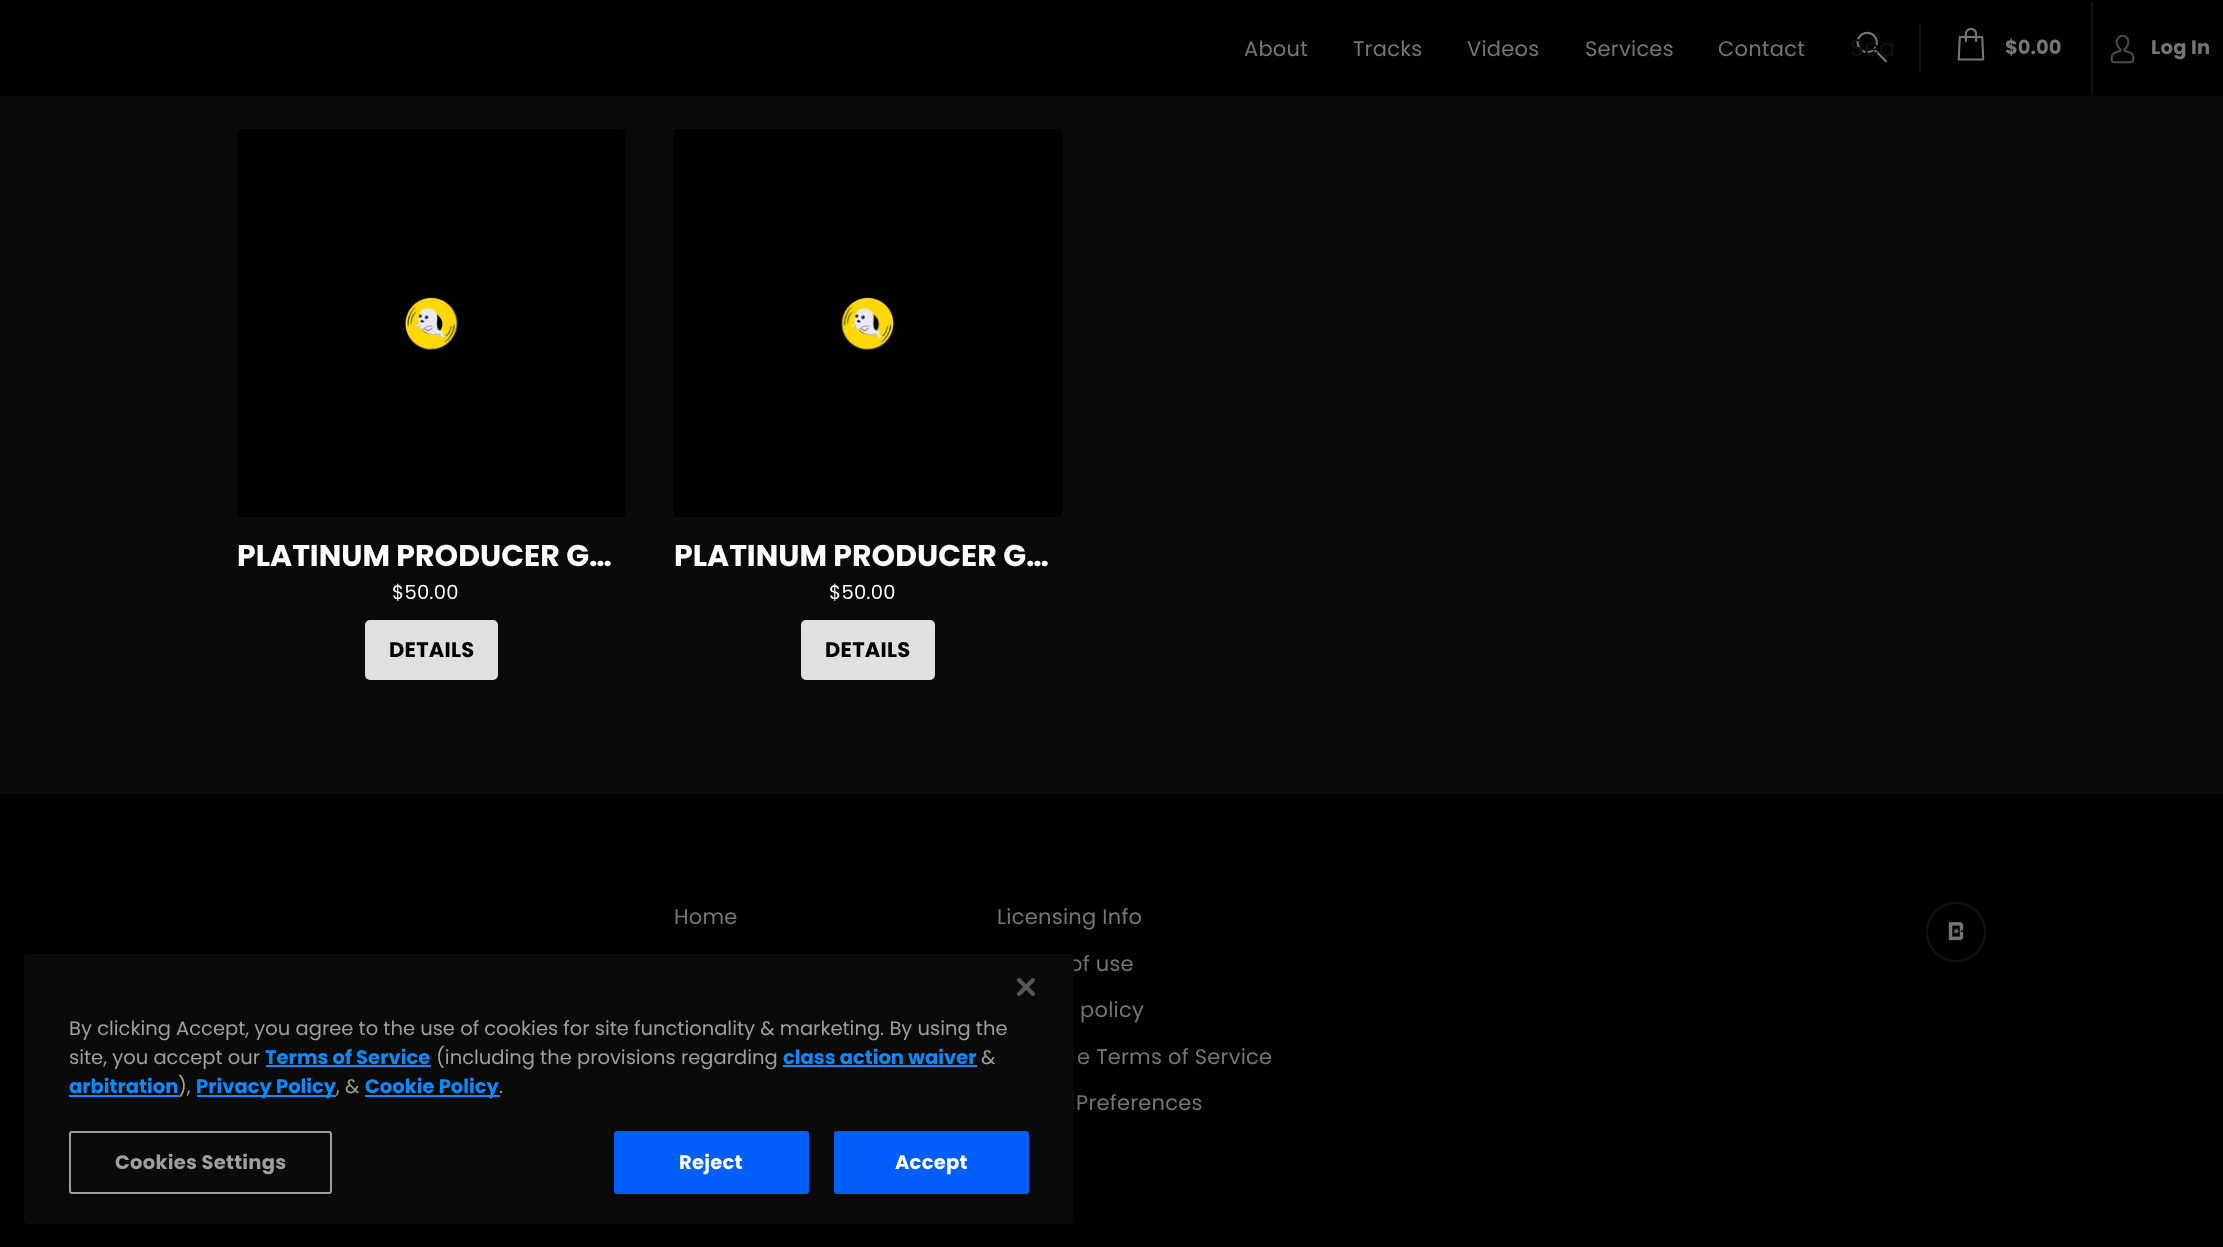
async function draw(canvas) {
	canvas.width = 2223;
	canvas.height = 1247;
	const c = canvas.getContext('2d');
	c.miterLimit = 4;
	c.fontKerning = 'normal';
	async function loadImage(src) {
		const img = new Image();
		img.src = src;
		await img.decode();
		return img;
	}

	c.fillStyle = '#000';
	c.fillRect(0, 0, 2223, 1247);
	c.letterSpacing = '0.25px';
	c.font = '21px Poppins';
	c.fillStyle = '#757575';
	for (const [text, x, y] of [
		['About', 1244, 56],
		['Tracks', 1353, 56],
		['Videos', 1467, 56],
		['Services', 1585, 56],
		['Contact', 1718, 56],
	]) {
		c.fillText(text, x, y);
	}
	c.drawImage(await loadImage('img1.png'), 1856, 31, 31, 32);
	c.letterSpacing = '0px';
	c.font = '24px Poppins';
	c.fillStyle = '#111';
	c.fillText('Sea', 1850, 56);
	c.fillStyle = '#121212';
	c.fillRect(1919, 24, 2, 48);
	c.drawImage(await loadImage('img2.png'), 1957, 27, 28, 34);
	c.font = 'bold 19.5px Poppins';
	c.fillStyle = '#757575';
	c.fillText('$0.00', 2005, 54);
	c.fillStyle = '#121212';
	c.fillRect(2091, 2, 2, 93);
	c.drawImage(await loadImage('img3.png'), 2110, 34, 25, 30);
	c.letterSpacing = '0.25px';
	c.fillStyle = '#757575';
	c.fillText('Log In', 2151, 54);
	c.fillStyle = '#0a0a0a';
	c.fillRect(0, 96, 2223, 698);
	c.drawImage(await loadImage('img4.png'), 237, 129, 388, 388);
	c.letterSpacing = '0px';
	c.font = 'bold 30px Poppins';
	c.fillStyle = '#fff';
	c.fillText('PLATINUM PRODUCER G…', 237, 566);
	c.letterSpacing = '0.25px';
	c.font = '19.5px Poppins';
	c.fillText('$50.00', 392, 599);
	c.fillStyle = '#e0e0e0';
	c.beginPath();
	c.roundRect(365, 620, 133, 60, 5);
	c.fill();
	c.font = 'bold 21px Poppins';
	c.fillStyle = '#000';
	c.fillText('DETAILS', 389, 657);
	c.drawImage(await loadImage('img5.png'), 674, 129, 388, 388);
	c.letterSpacing = '0px';
	c.font = 'bold 30px Poppins';
	c.fillStyle = '#fff';
	c.fillText('PLATINUM PRODUCER G…', 674, 566);
	c.letterSpacing = '0.25px';
	c.font = '19.5px Poppins';
	c.fillText('$50.00', 829, 599);
	c.fillStyle = '#e0e0e0';
	c.beginPath();
	c.roundRect(801, 620, 134, 60, 5);
	c.fill();
	c.font = 'bold 21px Poppins';
	c.fillStyle = '#000';
	c.fillText('DETAILS', 825, 657);
	c.font = '21px Poppins';
	c.fillStyle = '#757575';
	for (const [text, x, y] of [
		['Home', 674, 924],
		['Licensing Info', 997, 924],
		['of use', 1069, 971],
		['policy', 1080, 1017],
		['e Terms of Service', 1077, 1064],
		['Preferences', 1076, 1110],
	]) {
		c.fillText(text, x, y);
	}
	c.beginPath();
	c.arc(1956, 932, 29, 0, 2 * Math.PI);
	c.strokeStyle = '#121212';
	c.lineWidth = 2;
	c.stroke();
	c.drawImage(await loadImage('img6.png'), 1948, 922, 16, 19);
	c.fillStyle = '#00000033';
	c.filter = 'blur(13.5px)';
	c.beginPath();
	c.roundRect(24, 954, 1050, 270, 4);
	c.fill();
	c.filter = 'none';
	c.fillStyle = '#0a0a09';
	c.beginPath();
	c.roundRect(24, 954, 1050, 270, 4);
	c.fill();
	c.drawImage(await loadImage('img7.png'), 1017, 978, 18, 18);
	c.letterSpacing = '0px';
	c.font = '19.5px Poppins';
	c.fillStyle = '#9f9f9f';
	c.fillText('By clicking Accept, you agree to the use of cookies for site functionality & marketing. By using the', 69, 1035);
	c.fillText('site, you accept our', 69, 1064);
	c.font = 'bold 19.5px Poppins';
	c.fillStyle = '#0b8aff';
	c.fillText('Terms of Service', 265, 1064);
	c.fillRect(266, 1065, 165, 2);
	c.font = '19.5px Poppins';
	c.fillStyle = '#9f9f9f';
	c.fillText('(including the provisions regarding', 436, 1064);
	c.font = 'bold 19.5px Poppins';
	c.fillStyle = '#0b8aff';
	c.fillText('class action waiver', 783, 1064);
	c.fillRect(783, 1065, 194, 2);
	c.font = '19.5px Poppins';
	c.fillStyle = '#9f9f9f';
	c.fillText('&', 981, 1064);
	c.font = 'bold 19.5px Poppins';
	c.fillStyle = '#0b8aff';
	c.fillText('arbitration', 69, 1093);
	c.fillRect(69, 1095, 110, 2);
	c.font = '19.5px Poppins';
	c.fillStyle = '#9f9f9f';
	c.fillText('),', 178, 1093);
	c.fillStyle = '#0b8aff';
	c.fillRect(197, 1095, 139, 2);
	c.font = 'bold 19.5px Poppins';
	c.fillText('Privacy Policy', 196, 1093);
	c.font = '19.5px Poppins';
	c.fillStyle = '#9f9f9f';
	c.fillText(', &', 336, 1093);
	c.fillStyle = '#0b8aff';
	c.fillRect(365, 1095, 135, 2);
	c.font = 'bold 19.5px Poppins';
	c.fillText('Cookie Policy', 365, 1093);
	c.font = '19.5px Poppins';
	c.fillStyle = '#9f9f9f';
	c.fillText('.', 499, 1093);
	c.beginPath();
	c.roundRect(70, 1132, 261, 61, 2);
	c.strokeStyle = '#9f9f9f';
	c.stroke();
	c.letterSpacing = '0.25px';
	c.font = 'bold 19.5px Poppins';
	c.fillText('Cookies Settings', 115, 1169);
	c.fillStyle = '#005ff8';
	c.beginPath();
	c.roundRect(615, 1132, 193, 61, 2);
	c.fill();
	c.strokeStyle = '#005ff8';
	c.stroke();
	c.fillStyle = '#fff';
	c.fillText('Reject', 679, 1169);
	c.fillStyle = '#005ff8';
	c.beginPath();
	c.roundRect(835, 1132, 193, 61, 2);
	c.fill();
	c.stroke();
	c.fillStyle = '#fff';
	c.fillText('Accept', 895, 1169);
}

draw(document.querySelector('canvas'));
